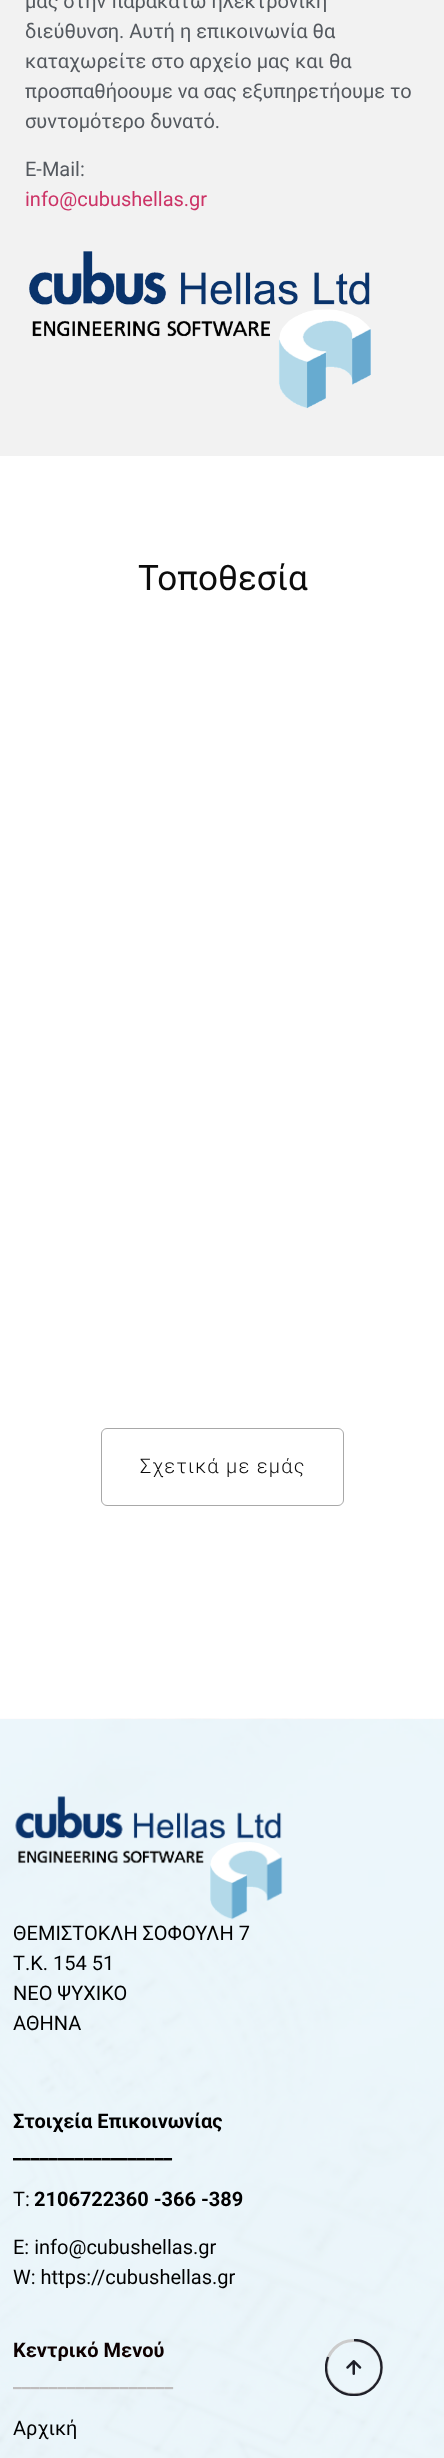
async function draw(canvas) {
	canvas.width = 444;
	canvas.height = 2458;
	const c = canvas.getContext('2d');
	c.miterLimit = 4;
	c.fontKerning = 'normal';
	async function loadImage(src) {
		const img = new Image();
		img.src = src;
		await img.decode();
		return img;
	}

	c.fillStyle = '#fff';
	c.fillRect(0, 0, 444, 2458);
	c.fillStyle = '#f2f2f2';
	c.fillRect(0, 0, 444, 456);
	c.font = '20px Roboto';
	c.fillStyle = '#54595f';
	for (const [text, x, y] of [
		['μας στην παρακάτω ηλεκτρονική', 25, 8],
		['διεύθυνση. Αυτή η επικοινωνία θα', 25, 38],
		['καταχωρείτε στο αρχείο μας και θα', 25, 68],
		['προσπαθήοουμε να σας εξυπηρετήουμε το', 25, 98],
		['συντομότερο δυνατό.', 25, 128],
		['E-Mail:', 25, 176],
	]) {
		c.fillText(text, x, y);
	}
	c.fillStyle = '#c36';
	c.fillText('info@cubushellas.gr', 25, 206);
	c.drawImage(await loadImage('img1.png'), 29, 251, 342, 158);
	c.font = '35px Roboto';
	c.fillStyle = '#0c0c0c';
	c.fillText('Τοποθεσία', 138, 590);
	c.beginPath();
	c.roundRect(101.5, 1428.5, 242, 77, 5.5);
	c.strokeStyle = '#a8a8a8';
	c.stroke();
	c.letterSpacing = '1.25px';
	c.font = '300 20px Roboto';
	c.fillText('Σχετικά με εμάς', 140, 1473);
	c.drawImage(await loadImage('img2.png'), 0, 1718, 444, 740);
	c.drawImage(await loadImage('img3.png'), 15, 1796, 268, 124);
	c.letterSpacing = '0px';
	c.font = '20px Roboto';
	c.fillStyle = '#000';
	for (const [text, x, y] of [
		['ΘΕΜΙΣΤΟΚΛΗ ΣΟΦΟΥΛΗ 7', 13, 1940],
		['Τ.Κ. 154 51', 13, 1970],
		['ΝΕΟ ΨΥΧΙΚΟ', 13, 2000],
		['ΑΘΗΝΑ', 13, 2030],
	]) {
		c.fillText(text, x, y);
	}
	c.font = 'bold 20px Roboto';
	c.fillText('Στοιχεία Επικοινωνίας', 13, 2128);
	c.font = '900 20px Roboto';
	c.fillText('__________________', 13, 2158);
	c.font = '20px Roboto';
	c.fillText('T:', 13, 2206);
	c.font = 'bold 20px Roboto';
	c.fillText('2106722360 -366 -389', 34, 2206);
	c.font = '20px Roboto';
	c.fillText('Ε: info@cubushellas.gr', 13, 2254);
	c.fillText('W: https://cubushellas.gr', 13, 2284);
	c.font = 'bold 20px Roboto';
	c.fillStyle = '#0d0000';
	c.fillText('Κεντρικό Μενού', 13, 2357);
	c.fillStyle = '#bfbdbd';
	c.fillText('__________________', 13, 2387);
	c.font = '20px Roboto';
	c.fillStyle = '#000';
	c.fillText('Αρχική', 13, 2435);
	c.beginPath();
	c.roundRect(326.5, 2340.5, 55, 54, 27);
	c.strokeStyle = '#ccc';
	c.lineWidth = 3;
	c.stroke();
	c.save();
	c.beginPath();
	c.rect(325, 2339, 58, 57);
	c.clip();
	c.beginPath();
	c.moveTo(354, 2340);
	c.bezierCurveTo(369, 2340, 381.5, 2352, 381.5, 2367.5);
	c.bezierCurveTo(381.5, 2383, 369, 2395, 354, 2395);
	c.bezierCurveTo(338.5, 2395, 326, 2383, 326, 2367.5);
	c.bezierCurveTo(326, 2364, 327, 2360, 328, 2357);
	c.strokeStyle = '#1f2029';
	c.lineWidth = 2.3;
	c.stroke();
	c.restore();
	c.drawImage(await loadImage('img4.png'), 346, 2360, 16, 15);
}

draw(document.querySelector('canvas'));
